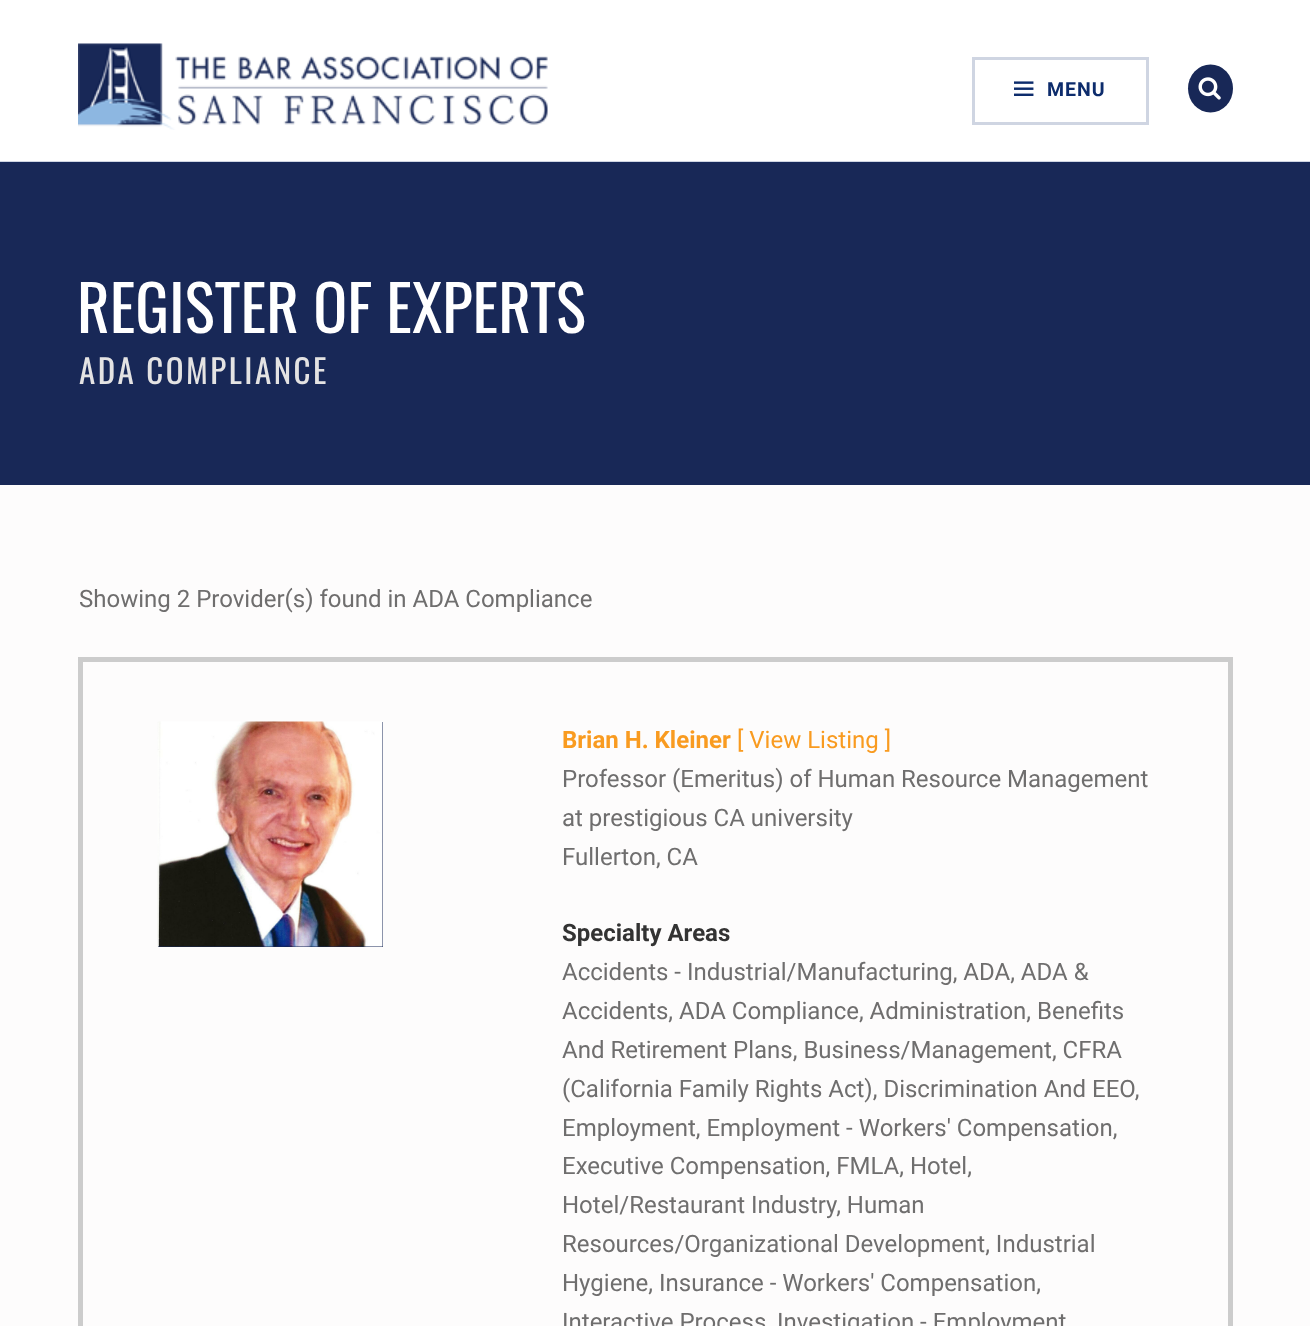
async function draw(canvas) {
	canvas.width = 1310;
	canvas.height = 1326;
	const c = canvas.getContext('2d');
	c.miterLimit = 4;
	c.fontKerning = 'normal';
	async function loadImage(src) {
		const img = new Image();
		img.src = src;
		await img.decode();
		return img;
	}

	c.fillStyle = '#fdfcfc';
	c.fillRect(0, 0, 1310, 1326);
	c.fillStyle = '#fff';
	c.fillRect(0, 0, 1310, 161);
	c.fillStyle = '#cfd5e2';
	c.fillRect(0, 161, 1310, 1);
	c.drawImage(await loadImage('img1.png'), 78, 43, 470, 87);
	c.strokeStyle = '#cfd5e2';
	c.lineWidth = 3;
	c.strokeRect(973.5, 58.5, 174, 65);
	c.drawImage(await loadImage('img2.png'), 1014, 81, 20, 15);
	c.letterSpacing = '1px';
	c.font = 'bold 19.5px Roboto';
	c.fillStyle = '#0d2c6c';
	c.fillText('MENU', 1047, 96);
	c.fillStyle = '#182857';
	c.beginPath();
	c.ellipse(1210.5, 88.5, 22.5, 24, 0, 0, 2 * Math.PI);
	c.fill();
	c.drawImage(await loadImage('img3.png'), 1198, 77, 23, 23);
	c.fillRect(0, 163, 1310, 322);
	c.fillStyle = '#16295b';
	c.fillRect(0, 162, 1310, 1);
	c.letterSpacing = '0px';
	c.font = '63px Oswald';
	c.fillStyle = '#fff';
	c.fillText('REGISTER OF EXPERTS', 77, 333);
	c.letterSpacing = '2.5px';
	c.font = '33px Oswald';
	c.fillStyle = '#e4e3e3';
	c.fillText('ADA COMPLIANCE', 79, 384);
	c.letterSpacing = '0px';
	c.font = '24px Roboto';
	c.fillStyle = '#6f6e6e';
	c.fillText('Showing 2 Provider(s) found in ADA Compliance', 79, 607);
	c.strokeStyle = '#ccc';
	c.lineWidth = 5;
	c.strokeRect(80.5, 659.5, 1150, 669);
	c.fillStyle = '#182857';
	c.fillRect(158, 722, 225, 225);
	c.drawImage(await loadImage('img4.png'), 157, 721, 226, 226);
	c.font = 'bold 24px Roboto';
	c.fillStyle = '#f99b20';
	c.fillText('Brian H. Kleiner', 562, 748);
	c.font = '24px Roboto';
	c.fillText('[ View Listing ]', 737, 748);
	c.fillStyle = '#6f6e6e';
	for (const [text, x, y] of [
		['Professor (Emeritus) of Human Resource Management', 562, 787],
		['at prestigious CA university', 562, 826],
		['Fullerton, CA', 562, 865],
	]) {
		c.fillText(text, x, y);
	}
	c.font = 'bold 24px Roboto';
	c.fillStyle = '#333';
	c.fillText('Specialty Areas', 562, 941);
	c.font = '24px Roboto';
	c.fillStyle = '#6f6e6e';
	for (const [text, x, y] of [
		['Accidents - Industrial/Manufacturing, ADA, ADA &', 562, 980],
		['Accidents, ADA Compliance, Administration, Benefits', 562, 1019],
		['And Retirement Plans, Business/Management, CFRA', 562, 1058],
		['(California Family Rights Act), Discrimination And EEO,', 562, 1097],
		['Employment, Employment - Workers\' Compensation,', 562, 1136],
		['Executive Compensation, FMLA, Hotel,', 562, 1174],
		['Hotel/Restaurant Industry, Human', 562, 1213],
		['Resources/Organizational Development, Industrial', 562, 1252],
		['Hygiene, Insurance - Workers\' Compensation,', 562, 1291],
		['Interactive Process, Investigation - Employment', 562, 1330],
	]) {
		c.fillText(text, x, y);
	}
}

draw(document.querySelector('canvas'));
